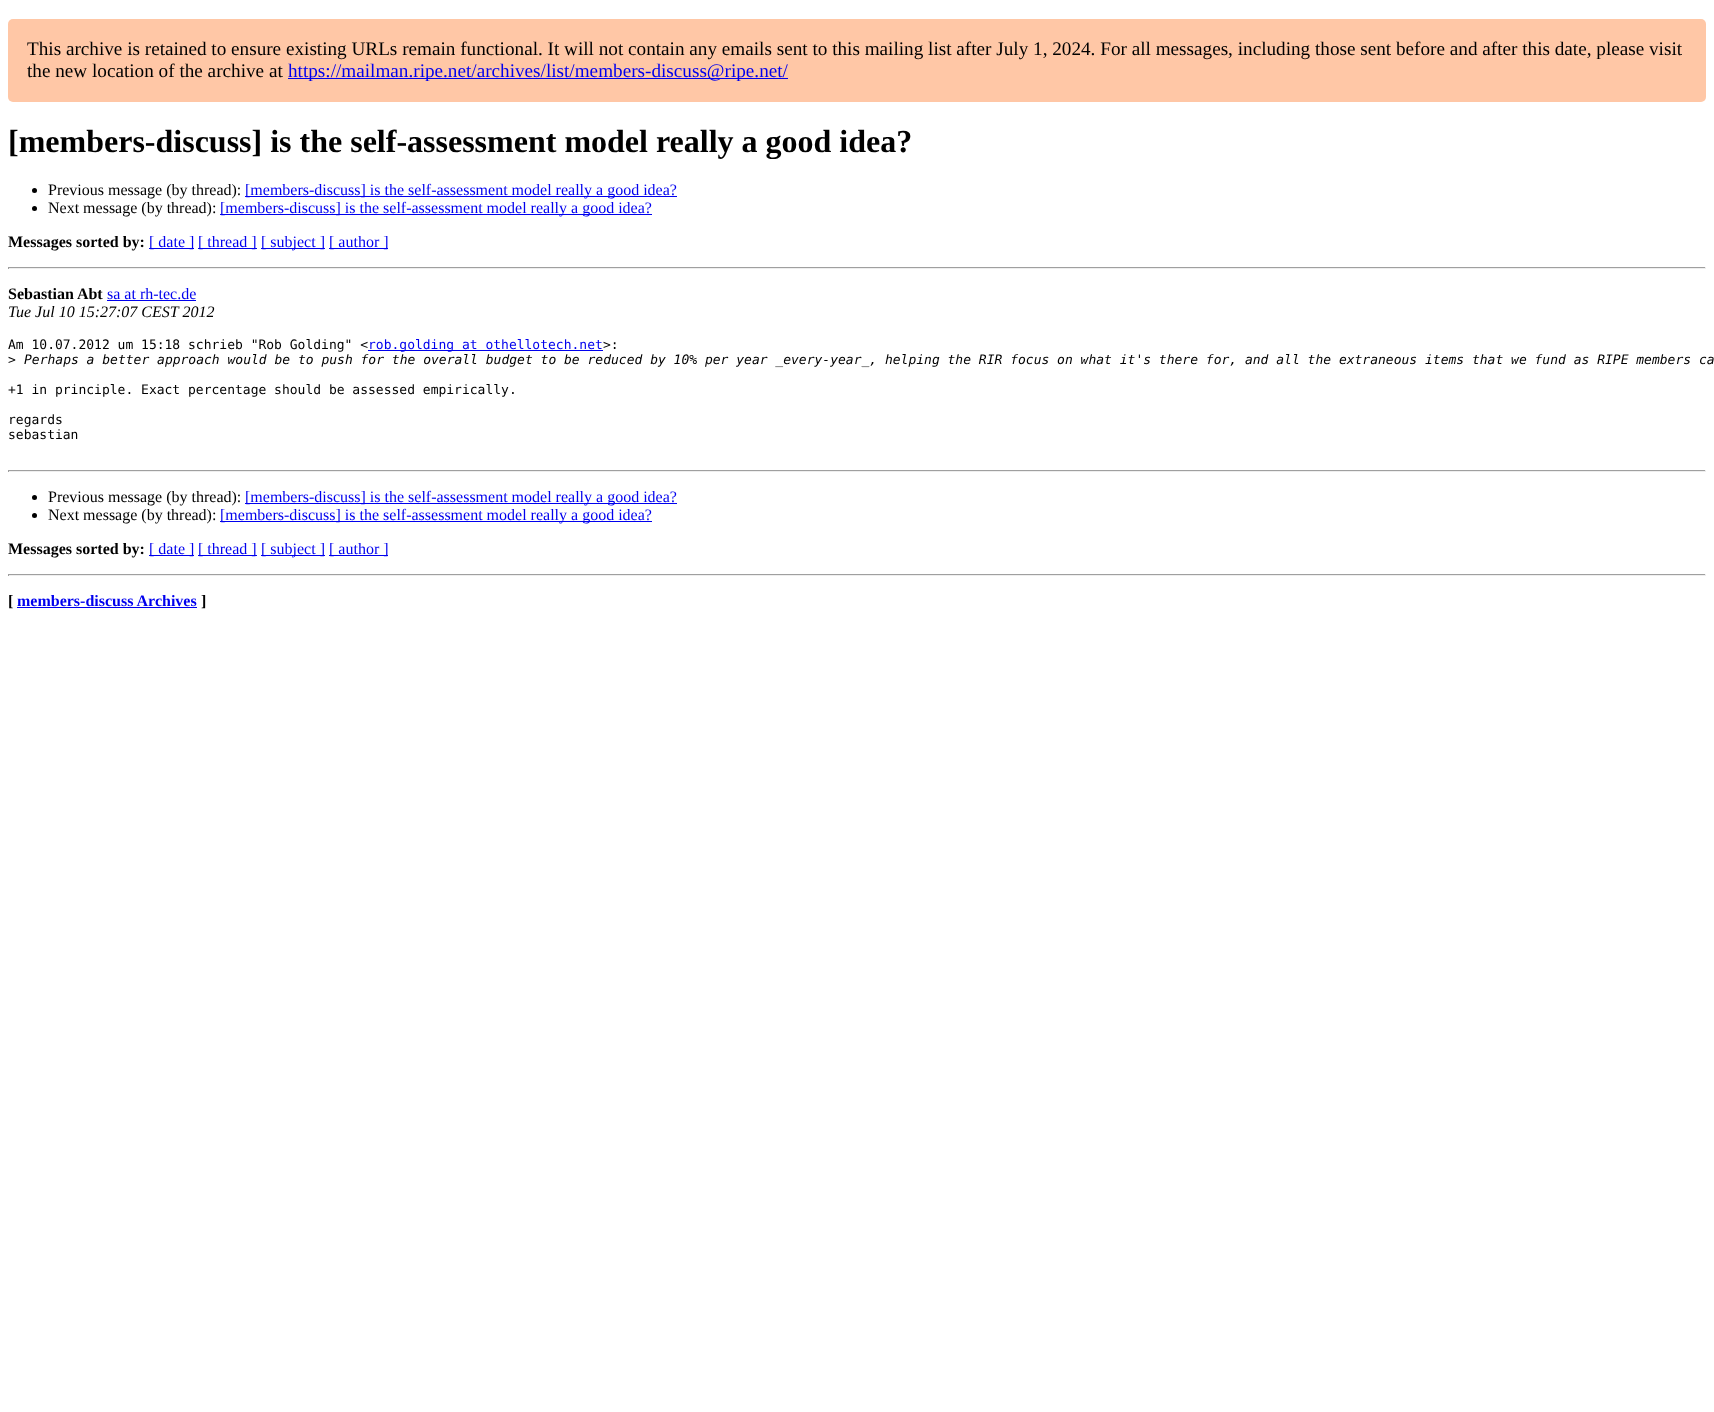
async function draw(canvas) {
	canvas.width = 1714;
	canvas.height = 1412;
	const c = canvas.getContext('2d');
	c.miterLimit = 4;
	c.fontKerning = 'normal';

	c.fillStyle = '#fff';
	c.fillRect(0, 0, 1714, 1412);
	c.fillStyle = '#ffc7a6';
	c.beginPath();
	c.roundRect(8, 19, 1698, 83, 5);
	c.fill();
	c.font = '19.2px Liberation Serif';
	c.fillStyle = '#000';
	c.fillText('This archive is retained to ensure existing URLs remain functional. It will not contain any emails sent to this mailing list after July 1, 2024. For all messages, including those sent before and after this date, please visit', 27, 55);
	c.fillText('the new location of the archive at', 27, 77);
	c.fillStyle = '#00e';
	c.fillRect(288, 78, 500, 1);
	c.fillText('https://mailman.ripe.net/archives/list/members-discuss@ripe.net/', 288, 77);
	c.font = 'bold 32px Liberation Serif';
	c.fillStyle = '#000';
	c.fillText('[members-discuss] is the self-assessment model really a good idea?', 8, 152);
	c.beginPath();
	c.arc(34.5, 190.5, 2.5, 0, 2 * Math.PI);
	c.fill();
	c.font = '16px Liberation Serif';
	c.fillText('Previous message (by thread):', 48, 195);
	c.fillStyle = '#00e';
	c.fillRect(245, 196, 432, 1);
	c.fillText('[members-discuss] is the self-assessment model really a good idea?', 245, 195);
	c.fillStyle = '#000';
	c.beginPath();
	c.arc(34.5, 208.5, 2.5, 0, 2 * Math.PI);
	c.fill();
	c.fillText('Next message (by thread):', 48, 213);
	c.fillStyle = '#00e';
	c.fillRect(220, 214, 432, 1);
	c.fillText('[members-discuss] is the self-assessment model really a good idea?', 220, 213);
	c.font = 'bold 16px Liberation Serif';
	c.fillStyle = '#000';
	c.fillText('Messages sorted by:', 8, 247);
	c.fillStyle = '#00e';
	c.fillRect(149, 248, 45, 1);
	c.font = '16px Liberation Serif';
	c.fillText('[ date ]', 149, 247);
	c.fillRect(198, 248, 59, 1);
	c.fillText('[ thread ]', 198, 247);
	c.fillRect(261, 248, 64, 1);
	c.fillText('[ subject ]', 261, 247);
	c.fillRect(329, 248, 59, 1);
	c.fillText('[ author ]', 329, 247);
	for (const [x, y, w, h, color] of [
		[8, 267, 1698, 1, '#9f9f9f'],
		[1705, 267, 1, 2, '#eee'],
		[8, 268, 1698, 1, '#eee'],
		[8, 267, 1, 2, '#9f9f9f'],
	]) {
		c.fillStyle = color;
		c.fillRect(x, y, w, h);
	}
	c.font = 'bold 16px Liberation Serif';
	c.fillStyle = '#000';
	c.fillText('Sebastian Abt', 8, 299);
	c.font = '16px Liberation Serif';
	c.fillStyle = '#00e';
	c.fillText('sa at rh-tec.de', 107, 299);
	c.fillRect(107, 300, 89, 1);
	c.font = 'italic 16px Liberation Serif';
	c.fillStyle = '#000';
	c.fillText('Tue Jul 10 15:27:07 CEST 2012', 8, 317);
	c.font = '13px DejaVu Sans Mono';
	c.fillText('Am 10.07.2012 um 15:18 schrieb "Rob Golding" <', 8, 349);
	c.fillStyle = '#00e';
	c.fillRect(368, 350, 235, 1);
	c.fillText('rob.golding at othellotech.net', 368, 349);
	c.fillStyle = '#000';
	c.fillText('>:', 603, 349);
	c.fillText('>', 8, 364);
	c.font = 'italic 13px DejaVu Sans Mono';
	c.fillText('Perhaps a better approach would be to push for the overall budget to be reduced by 10% per year _every-year_, helping the RIR focus on what it\'s there for, and all the extraneous items that we fund as RIPE members ca', 24, 364);
	c.font = '13px DejaVu Sans Mono';
	for (const [text, x, y] of [
		['+1 in principle. Exact percentage should be assessed empirically.', 8, 394],
		['regards', 8, 424],
		['sebastian', 8, 439],
	]) {
		c.fillText(text, x, y);
	}
	for (const [x, y, w, h, color] of [
		[8, 470, 1698, 1, '#9f9f9f'],
		[1705, 470, 1, 2, '#eee'],
		[8, 471, 1698, 1, '#eee'],
		[8, 470, 1, 2, '#9f9f9f'],
	]) {
		c.fillStyle = color;
		c.fillRect(x, y, w, h);
	}
	c.fillStyle = '#000';
	c.beginPath();
	c.arc(34.5, 497.5, 2.5, 0, 2 * Math.PI);
	c.fill();
	c.font = '16px Liberation Serif';
	c.fillText('Previous message (by thread):', 48, 502);
	c.fillStyle = '#00e';
	c.fillRect(245, 503, 432, 1);
	c.fillText('[members-discuss] is the self-assessment model really a good idea?', 245, 502);
	c.fillStyle = '#000';
	c.beginPath();
	c.arc(34.5, 515.5, 2.5, 0, 2 * Math.PI);
	c.fill();
	c.fillText('Next message (by thread):', 48, 520);
	c.fillStyle = '#00e';
	c.fillRect(220, 521, 432, 1);
	c.fillText('[members-discuss] is the self-assessment model really a good idea?', 220, 520);
	c.font = 'bold 16px Liberation Serif';
	c.fillStyle = '#000';
	c.fillText('Messages sorted by:', 8, 554);
	c.fillStyle = '#00e';
	c.fillRect(149, 555, 45, 1);
	c.font = '16px Liberation Serif';
	c.fillText('[ date ]', 149, 554);
	c.fillRect(198, 555, 59, 1);
	c.fillText('[ thread ]', 198, 554);
	c.fillRect(261, 555, 64, 1);
	c.fillText('[ subject ]', 261, 554);
	c.fillRect(329, 555, 59, 1);
	c.fillText('[ author ]', 329, 554);
	for (const [x, y, w, h, color] of [
		[8, 574, 1698, 1, '#9f9f9f'],
		[1705, 574, 1, 2, '#eee'],
		[8, 575, 1698, 1, '#eee'],
		[8, 574, 1, 2, '#9f9f9f'],
	]) {
		c.fillStyle = color;
		c.fillRect(x, y, w, h);
	}
	c.font = 'bold 16px Liberation Serif';
	c.fillStyle = '#000';
	c.fillText('[', 8, 606);
	c.fillStyle = '#00e';
	c.fillText('members-discuss Archives', 17, 606);
	c.fillRect(17, 607, 180, 1);
	c.fillStyle = '#000';
	c.fillText(']', 201, 606);
}

draw(document.querySelector('canvas'));
